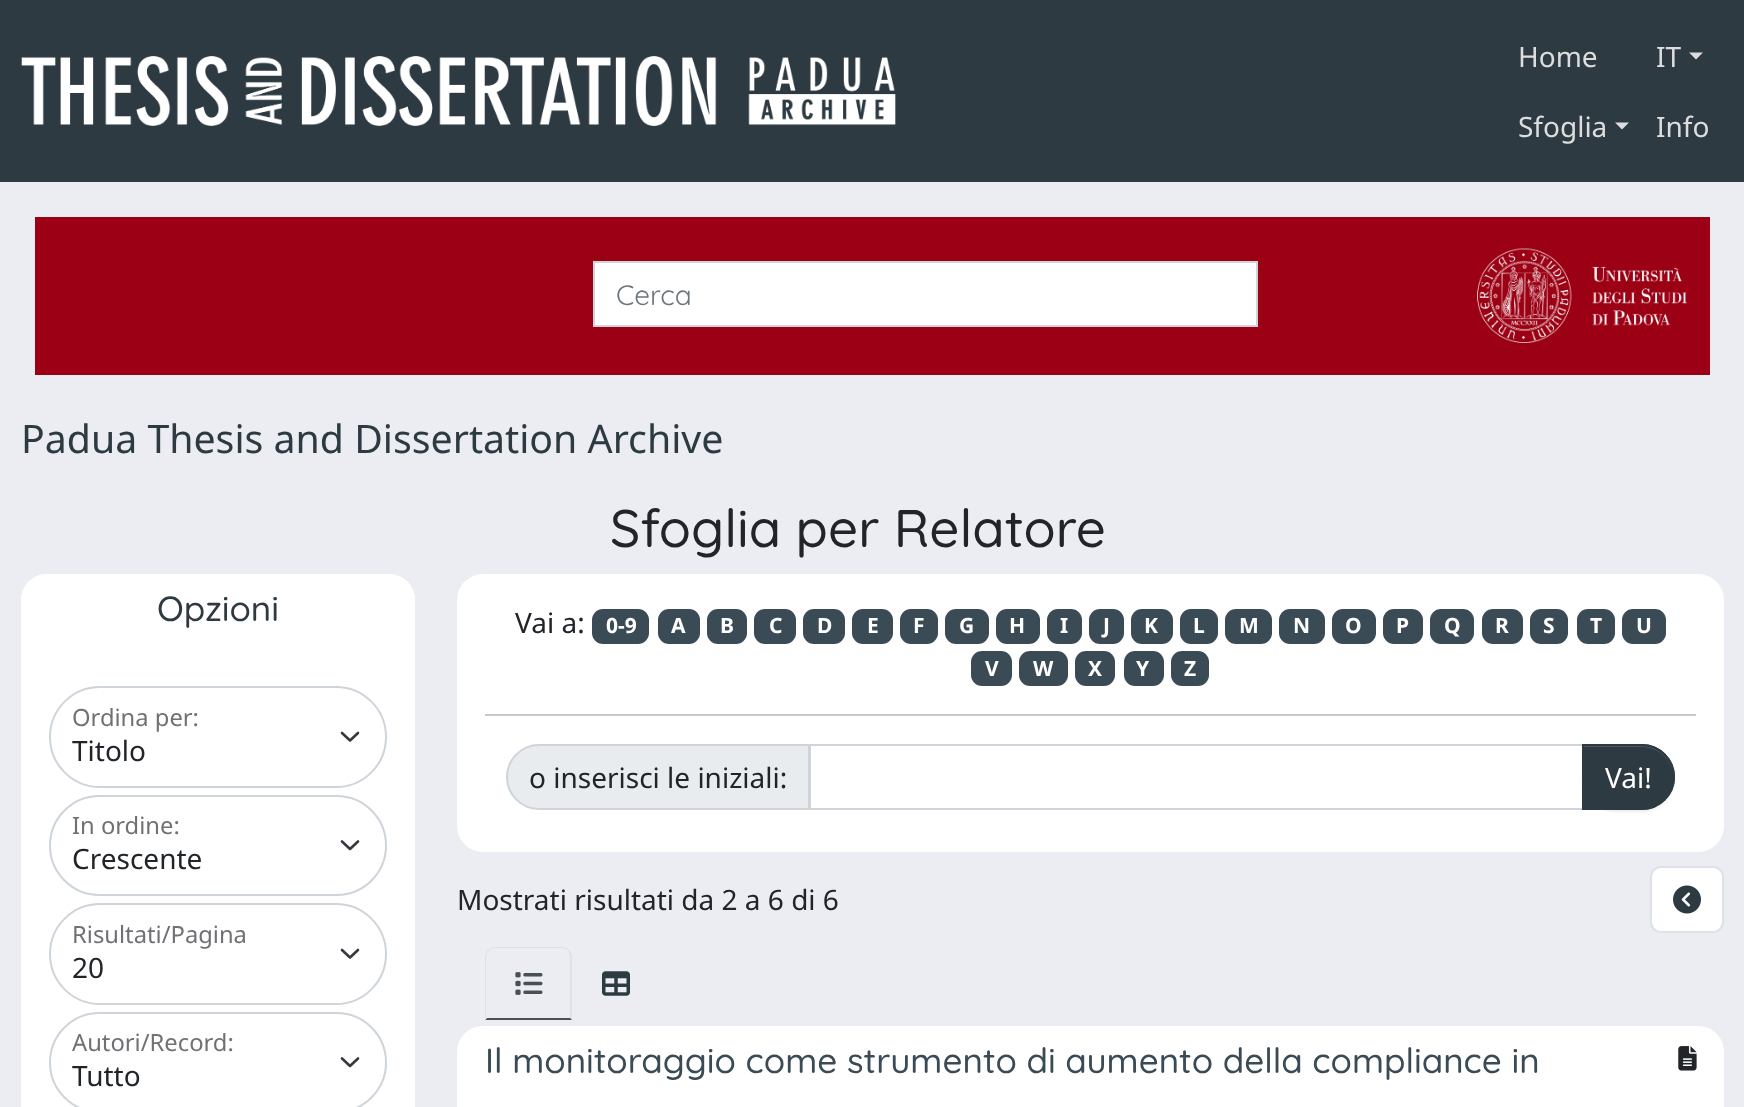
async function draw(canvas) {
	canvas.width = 1744;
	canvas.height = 1107;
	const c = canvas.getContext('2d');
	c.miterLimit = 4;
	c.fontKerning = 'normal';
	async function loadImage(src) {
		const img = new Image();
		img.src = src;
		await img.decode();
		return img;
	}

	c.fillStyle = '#ecedf2';
	c.fillRect(0, 0, 1744, 1107);
	c.fillStyle = '#2d3a42';
	c.fillRect(0, 0, 1744, 182);
	c.drawImage(await loadImage('img1.png'), 21, 56, 875, 70);
	c.font = '28px Noto Sans';
	c.fillStyle = '#ddd';
	c.fillText('Home', 1518, 67);
	c.fillText('Sfoglia', 1518, 137);
	c.beginPath();
	c.moveTo(1615, 122.5);
	c.lineTo(1629, 122.5);
	c.lineTo(1622, 129.5);
	c.closePath();
	c.fill();
	c.fillText('IT', 1656, 67);
	c.beginPath();
	c.moveTo(1689, 52.5);
	c.lineTo(1703, 52.5);
	c.lineTo(1696, 59.5);
	c.closePath();
	c.fill();
	c.fillText('Info', 1656, 137);
	c.fillStyle = '#9b0014';
	c.fillRect(35, 217, 1675, 158);
	c.fillStyle = '#fff';
	c.beginPath();
	c.rect(594, 262, 663, 64);
	c.fill();
	c.strokeStyle = '#ced4da';
	c.lineWidth = 2;
	c.stroke();
	c.font = '28px Quicksand';
	c.fillStyle = '#6c757d';
	c.fillText('Cerca', 616, 305);
	c.drawImage(await loadImage('img2.png'), 1477, 248, 210, 95);
	c.font = '39.25px Noto Sans';
	c.fillStyle = '#2d3a42';
	c.fillText('Padua Thesis and Dissertation Archive', 21, 453);
	c.font = '500 52.75px Quicksand';
	c.fillStyle = '#212529';
	c.fillText('Sfoglia per Relatore', 610, 547);
	c.fillStyle = '#fff';
	c.beginPath();
	c.roundRect(21, 574, 394, 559, 26);
	c.fill();
	c.beginPath();
	c.roundRect(21, 574, 394, 84, [26, 26, 0, 0]);
	c.fill();
	c.font = '500 35px Quicksand';
	c.fillStyle = '#2d3a42';
	c.fillText('Opzioni', 157, 621);
	c.beginPath();
	c.moveTo(342, 733);
	c.lineTo(350, 740.5);
	c.lineTo(358, 733);
	c.strokeStyle = '#343a40';
	c.lineWidth = 2.6;
	c.lineCap = 'round';
	c.lineJoin = 'round';
	c.stroke();
	c.beginPath();
	c.roundRect(50, 687, 336, 100, 50);
	c.strokeStyle = '#ced4da';
	c.lineWidth = 2;
	c.lineJoin = 'miter';
	c.stroke();
	c.font = '23.75px Noto Sans';
	c.fillStyle = '#6f7174';
	c.fillText('Ordina per:', 72, 726);
	c.font = '28px Noto Sans';
	c.fillStyle = '#212529';
	c.fillText('Titolo', 72, 761);
	c.beginPath();
	c.moveTo(342, 841.5);
	c.lineTo(350, 849);
	c.lineTo(358, 841.5);
	c.strokeStyle = '#343a40';
	c.lineWidth = 2.6;
	c.lineJoin = 'round';
	c.stroke();
	c.beginPath();
	c.roundRect(50, 796, 336, 99, 49.5);
	c.strokeStyle = '#ced4da';
	c.lineWidth = 2;
	c.lineJoin = 'miter';
	c.stroke();
	c.font = '23.75px Noto Sans';
	c.fillStyle = '#6f7174';
	c.fillText('In ordine:', 72, 834);
	c.font = '28px Noto Sans';
	c.fillStyle = '#212529';
	c.fillText('Crescente', 72, 869);
	c.beginPath();
	c.moveTo(342, 950);
	c.lineTo(350, 957.5);
	c.lineTo(358, 950);
	c.strokeStyle = '#343a40';
	c.lineWidth = 2.6;
	c.lineJoin = 'round';
	c.stroke();
	c.beginPath();
	c.roundRect(50, 904, 336, 100, 50);
	c.strokeStyle = '#ced4da';
	c.lineWidth = 2;
	c.lineJoin = 'miter';
	c.stroke();
	c.font = '23.75px Noto Sans';
	c.fillStyle = '#6f7174';
	c.fillText('Risultati/Pagina', 72, 943);
	c.font = '28px Noto Sans';
	c.fillStyle = '#212529';
	c.fillText('20', 72, 978);
	c.beginPath();
	c.moveTo(342, 1058.5);
	c.lineTo(350, 1066);
	c.lineTo(358, 1058.5);
	c.strokeStyle = '#343a40';
	c.lineWidth = 2.6;
	c.lineJoin = 'round';
	c.stroke();
	c.beginPath();
	c.roundRect(50, 1013, 336, 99, 49.5);
	c.strokeStyle = '#ced4da';
	c.lineWidth = 2;
	c.lineJoin = 'miter';
	c.stroke();
	c.font = '23.75px Noto Sans';
	c.fillStyle = '#6f7174';
	c.fillText('Autori/Record:', 72, 1051);
	c.font = '28px Noto Sans';
	c.fillStyle = '#212529';
	c.fillText('Tutto', 72, 1086);
	c.fillStyle = '#fff';
	c.beginPath();
	c.roundRect(457, 574, 1267, 278, 26);
	c.fill();
	c.fillStyle = '#212529';
	c.fillText('Vai a:', 515, 633);
	c.fillStyle = '#3a4b55';
	c.beginPath();
	c.roundRect(592, 609, 57, 35, 11);
	c.fill();
	c.font = 'bold 21px Noto Sans';
	c.fillStyle = '#fff';
	c.fillText('0-9', 606, 633);
	c.fillStyle = '#3a4b55';
	c.beginPath();
	c.roundRect(658, 609, 42, 35, 11);
	c.fill();
	c.fillStyle = '#fff';
	c.fillText('A', 671, 633);
	c.fillStyle = '#3a4b55';
	c.beginPath();
	c.roundRect(707, 609, 40, 35, 11);
	c.fill();
	c.fillStyle = '#fff';
	c.fillText('B', 720, 633);
	c.fillStyle = '#3a4b55';
	c.beginPath();
	c.roundRect(754, 609, 42, 35, 11);
	c.fill();
	c.fillStyle = '#fff';
	c.fillText('C', 769, 633);
	c.fillStyle = '#3a4b55';
	c.beginPath();
	c.roundRect(803, 609, 42, 35, 11);
	c.fill();
	c.fillStyle = '#fff';
	c.fillText('D', 817, 633);
	c.fillStyle = '#3a4b55';
	c.beginPath();
	c.roundRect(852, 609, 41, 35, 11);
	c.fill();
	c.fillStyle = '#fff';
	c.fillText('E', 867, 633);
	c.fillStyle = '#3a4b55';
	c.beginPath();
	c.roundRect(900, 609, 38, 35, 11);
	c.fill();
	c.fillStyle = '#fff';
	c.fillText('F', 913, 633);
	c.fillStyle = '#3a4b55';
	c.beginPath();
	c.roundRect(945, 609, 44, 35, 11);
	c.fill();
	c.fillStyle = '#fff';
	c.fillText('G', 959, 633);
	c.fillStyle = '#3a4b55';
	c.beginPath();
	c.roundRect(996, 609, 44, 35, 11);
	c.fill();
	c.fillStyle = '#fff';
	c.fillText('H', 1009, 633);
	c.fillStyle = '#3a4b55';
	c.beginPath();
	c.roundRect(1047, 609, 35, 35, 11);
	c.fill();
	c.fillStyle = '#fff';
	c.fillText('I', 1060, 633);
	c.fillStyle = '#3a4b55';
	c.beginPath();
	c.roundRect(1089, 609, 35, 35, 11);
	c.fill();
	c.fillStyle = '#fff';
	c.fillText('J', 1103, 633);
	c.fillStyle = '#3a4b55';
	c.beginPath();
	c.roundRect(1131, 609, 42, 35, 11);
	c.fill();
	c.fillStyle = '#fff';
	c.fillText('K', 1144, 633);
	c.fillStyle = '#3a4b55';
	c.beginPath();
	c.roundRect(1180, 609, 38, 35, 11);
	c.fill();
	c.fillStyle = '#fff';
	c.fillText('L', 1193, 633);
	c.fillStyle = '#3a4b55';
	c.beginPath();
	c.roundRect(1225, 609, 47, 35, 11);
	c.fill();
	c.fillStyle = '#fff';
	c.fillText('M', 1239, 633);
	c.fillStyle = '#3a4b55';
	c.beginPath();
	c.roundRect(1279, 609, 46, 35, 11);
	c.fill();
	c.fillStyle = '#fff';
	c.fillText('N', 1293, 633);
	c.fillStyle = '#3a4b55';
	c.beginPath();
	c.roundRect(1332, 609, 44, 35, 11);
	c.fill();
	c.fillStyle = '#fff';
	c.fillText('O', 1345, 633);
	c.fillStyle = '#3a4b55';
	c.beginPath();
	c.roundRect(1383, 609, 40, 35, 11);
	c.fill();
	c.fillStyle = '#fff';
	c.fillText('P', 1396, 633);
	c.fillStyle = '#3a4b55';
	c.beginPath();
	c.roundRect(1430, 609, 44, 35, 11);
	c.fill();
	c.fillStyle = '#fff';
	c.fillText('Q', 1444, 633);
	c.fillStyle = '#3a4b55';
	c.beginPath();
	c.roundRect(1482, 609, 41, 35, 11);
	c.fill();
	c.fillStyle = '#fff';
	c.fillText('R', 1495, 633);
	c.fillStyle = '#3a4b55';
	c.beginPath();
	c.roundRect(1530, 609, 38, 35, 11);
	c.fill();
	c.fillStyle = '#fff';
	c.fillText('S', 1543, 633);
	c.fillStyle = '#3a4b55';
	c.beginPath();
	c.roundRect(1577, 609, 38, 35, 11);
	c.fill();
	c.fillStyle = '#fff';
	c.fillText('T', 1590, 633);
	c.fillStyle = '#3a4b55';
	c.beginPath();
	c.roundRect(1622, 609, 44, 35, 11);
	c.fill();
	c.fillStyle = '#fff';
	c.fillText('U', 1636, 633);
	c.fillStyle = '#3a4b55';
	c.beginPath();
	c.roundRect(971, 651, 41, 35, 11);
	c.fill();
	c.fillStyle = '#fff';
	c.fillText('V', 985, 676);
	c.fillStyle = '#3a4b55';
	c.beginPath();
	c.roundRect(1019, 651, 49, 35, 11);
	c.fill();
	c.fillStyle = '#fff';
	c.fillText('W', 1033, 676);
	c.fillStyle = '#3a4b55';
	c.beginPath();
	c.roundRect(1075, 651, 40, 35, 11);
	c.fill();
	c.fillStyle = '#fff';
	c.fillText('X', 1088, 676);
	c.fillStyle = '#3a4b55';
	c.beginPath();
	c.roundRect(1124, 651, 40, 35, 11);
	c.fill();
	c.fillStyle = '#fff';
	c.fillText('Y', 1136, 676);
	c.fillStyle = '#3a4b55';
	c.beginPath();
	c.roundRect(1171, 651, 38, 35, 11);
	c.fill();
	c.fillStyle = '#fff';
	c.fillText('Z', 1184, 676);
	c.fillStyle = '#c8c9ca';
	c.fillRect(485, 714, 1211, 2);
	c.fillStyle = '#e9ecef';
	c.beginPath();
	c.roundRect(507, 745, 302, 64, [32, 0, 0, 32]);
	c.fill();
	c.stroke();
	c.font = '28px Noto Sans';
	c.fillStyle = '#212529';
	c.fillText('o inserisci le iniziali:', 529, 788);
	c.strokeRect(810, 745, 773, 64);
	c.fillStyle = '#00000012';
	c.filter = 'blur(1px)';
	c.beginPath();
	c.roundRect(1582, 746, 93, 66, 33);
	c.fill();
	c.filter = 'none';
	c.fillStyle = '#2d3a42';
	c.beginPath();
	c.roundRect(1582, 744, 93, 66, [0, 33, 33, 0]);
	c.fill();
	c.fillStyle = '#4d585e';
	c.beginPath();
	c.moveTo(1584, 747);
	c.lineTo(1642, 747);
	c.bezierCurveTo(1659, 747, 1673, 761, 1673, 778);
	c.bezierCurveTo(1673, 760, 1659, 746, 1642, 746);
	c.lineTo(1584, 746);
	c.closePath();
	c.fill();
	c.beginPath();
	c.roundRect(1583, 745, 91, 64, [0, 32, 32, 0]);
	c.strokeStyle = '#2d3a42';
	c.stroke();
	c.fillStyle = '#fff';
	c.fillText('Vai!', 1605, 788);
	c.fillStyle = '#212529';
	c.fillText('Mostrati risultati da 2 a 6 di 6', 457, 910);
	c.fillStyle = '#fff';
	c.beginPath();
	c.roundRect(1651, 867, 72, 65, 10);
	c.fill();
	c.strokeStyle = '#dee2e6';
	c.stroke();
	c.drawImage(await loadImage('img3.png'), 1673, 885, 28, 29);
	c.fillStyle = '#dee2e6';
	c.beginPath();
	c.moveTo(495, 947);
	c.bezierCurveTo(492, 947, 490, 948, 488, 950);
	c.lineTo(489, 951);
	c.bezierCurveTo(490, 949, 492, 948, 495, 948);
	c.lineTo(562, 948);
	c.bezierCurveTo(565, 948, 567, 949, 568, 951);
	c.lineTo(569, 950);
	c.bezierCurveTo(568, 948, 565, 947, 562, 947);
	c.closePath();
	c.fill();
	c.beginPath();
	c.moveTo(572, 1020);
	c.lineTo(572, 957);
	c.bezierCurveTo(572, 954, 571, 952, 569, 950);
	c.lineTo(568, 951);
	c.bezierCurveTo(569, 953, 570, 955, 570, 957);
	c.lineTo(570, 1018);
	c.closePath();
	c.fill();
	c.fillStyle = '#495057';
	c.beginPath();
	c.moveTo(572, 1020);
	c.lineTo(570, 1018);
	c.lineTo(487, 1018);
	c.lineTo(485, 1020);
	c.closePath();
	c.fill();
	c.fillStyle = '#dee2e6';
	c.beginPath();
	c.moveTo(488, 950);
	c.bezierCurveTo(486, 952, 485, 954, 485, 957);
	c.lineTo(485, 1020);
	c.lineTo(487, 1018);
	c.lineTo(486, 1018);
	c.lineTo(486, 957);
	c.bezierCurveTo(486, 954, 487, 952, 489, 951);
	c.closePath();
	c.fill();
	c.drawImage(await loadImage('img4.png'), 515, 972, 28, 23);
	c.drawImage(await loadImage('img5.png'), 602, 971, 28, 25);
	c.fillStyle = '#fff';
	c.beginPath();
	c.moveTo(483, 1026);
	c.lineTo(1698, 1026);
	c.bezierCurveTo(1712.5, 1026, 1724, 1037.5, 1724, 1052);
	c.lineTo(1724, 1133);
	c.lineTo(457, 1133);
	c.lineTo(457, 1052);
	c.bezierCurveTo(457, 1037.5, 468.5, 1026, 483, 1026);
	c.closePath();
	c.fill();
	c.font = '500 35px Quicksand';
	c.fillStyle = '#3a4b55';
	c.fillText('Il monitoraggio come strumento di aumento della compliance in', 485, 1073);
	c.drawImage(await loadImage('img6.png'), 1678, 1046, 19, 25);
}

draw(document.querySelector('canvas'));
